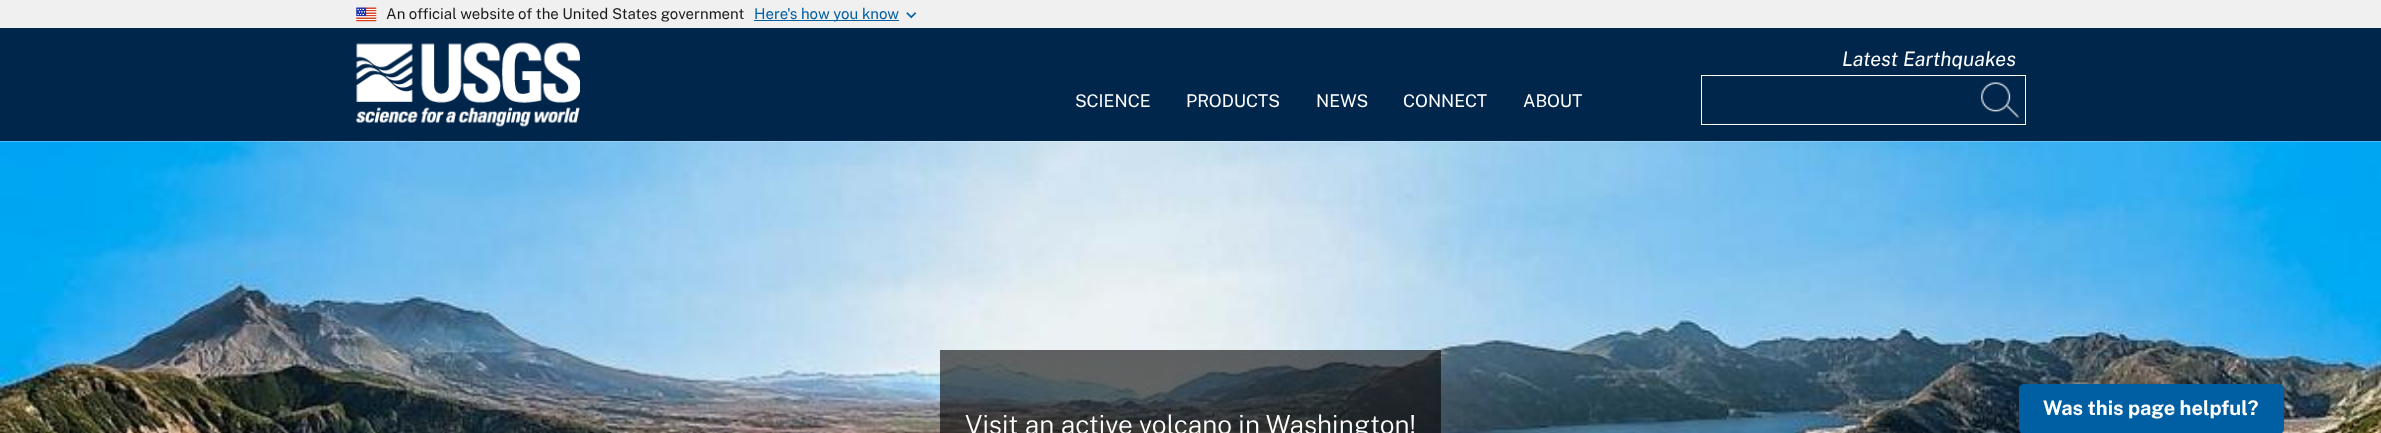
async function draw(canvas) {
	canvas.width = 2381;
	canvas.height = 433;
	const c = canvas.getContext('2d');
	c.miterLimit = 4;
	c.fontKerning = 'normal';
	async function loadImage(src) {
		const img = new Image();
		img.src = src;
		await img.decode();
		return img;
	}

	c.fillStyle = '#fff';
	c.fillRect(0, 0, 2381, 433);
	c.fillStyle = '#f0f0f0';
	c.fillRect(0, 0, 2381, 28);
	c.drawImage(await loadImage('img1.png'), 356, 7, 21, 15);
	c.font = '15px Public Sans';
	c.fillStyle = '#1b1b1b';
	c.fillText('An official website of the United States government', 386, 19);
	c.fillStyle = '#005ea2';
	c.fillRect(754, 20, 145, 1);
	c.fillText('Here\'s how you know', 754, 19);
	c.drawImage(await loadImage('img2.png'), 906, 12, 11, 7);
	c.fillStyle = '#00264c';
	c.fillRect(0, 28, 2381, 113);
	c.drawImage(await loadImage('img3.png'), 356, 42, 224, 85);
	c.font = 'italic 20px Public Sans';
	c.fillStyle = '#fff';
	c.fillText('Latest Earthquakes', 1842, 66);
	c.strokeStyle = '#fff';
	c.strokeRect(1701.5, 75.5, 324, 49);
	c.drawImage(await loadImage('img4.png'), 1981, 82, 38, 36);
	c.font = '17.5px Public Sans';
	for (const [text, x, y] of [
		['SCIENCE', 1075, 107],
		['PRODUCTS', 1186, 107],
		['NEWS', 1316, 107],
		['CONNECT', 1403, 107],
		['ABOUT', 1523, 107],
	]) {
		c.fillText(text, x, y);
	}
	c.drawImage(await loadImage('img5.png'), 0, 141, 2381, 292);
	c.fillStyle = '#00000099';
	c.fillRect(940, 350, 501, 83);
	c.font = '300 26.25px Public Sans';
	c.fillStyle = '#fff';
	c.fillText('Visit an active volcano in Washington!', 965, 434);
	c.fillStyle = '#005ea2';
	c.beginPath();
	c.roundRect(2019, 384, 265, 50, 5);
	c.fill();
	c.font = 'bold 20px Public Sans';
	c.fillStyle = '#fff';
	c.fillText('Was this page helpful?', 2043, 415);
}

draw(document.querySelector('canvas'));
